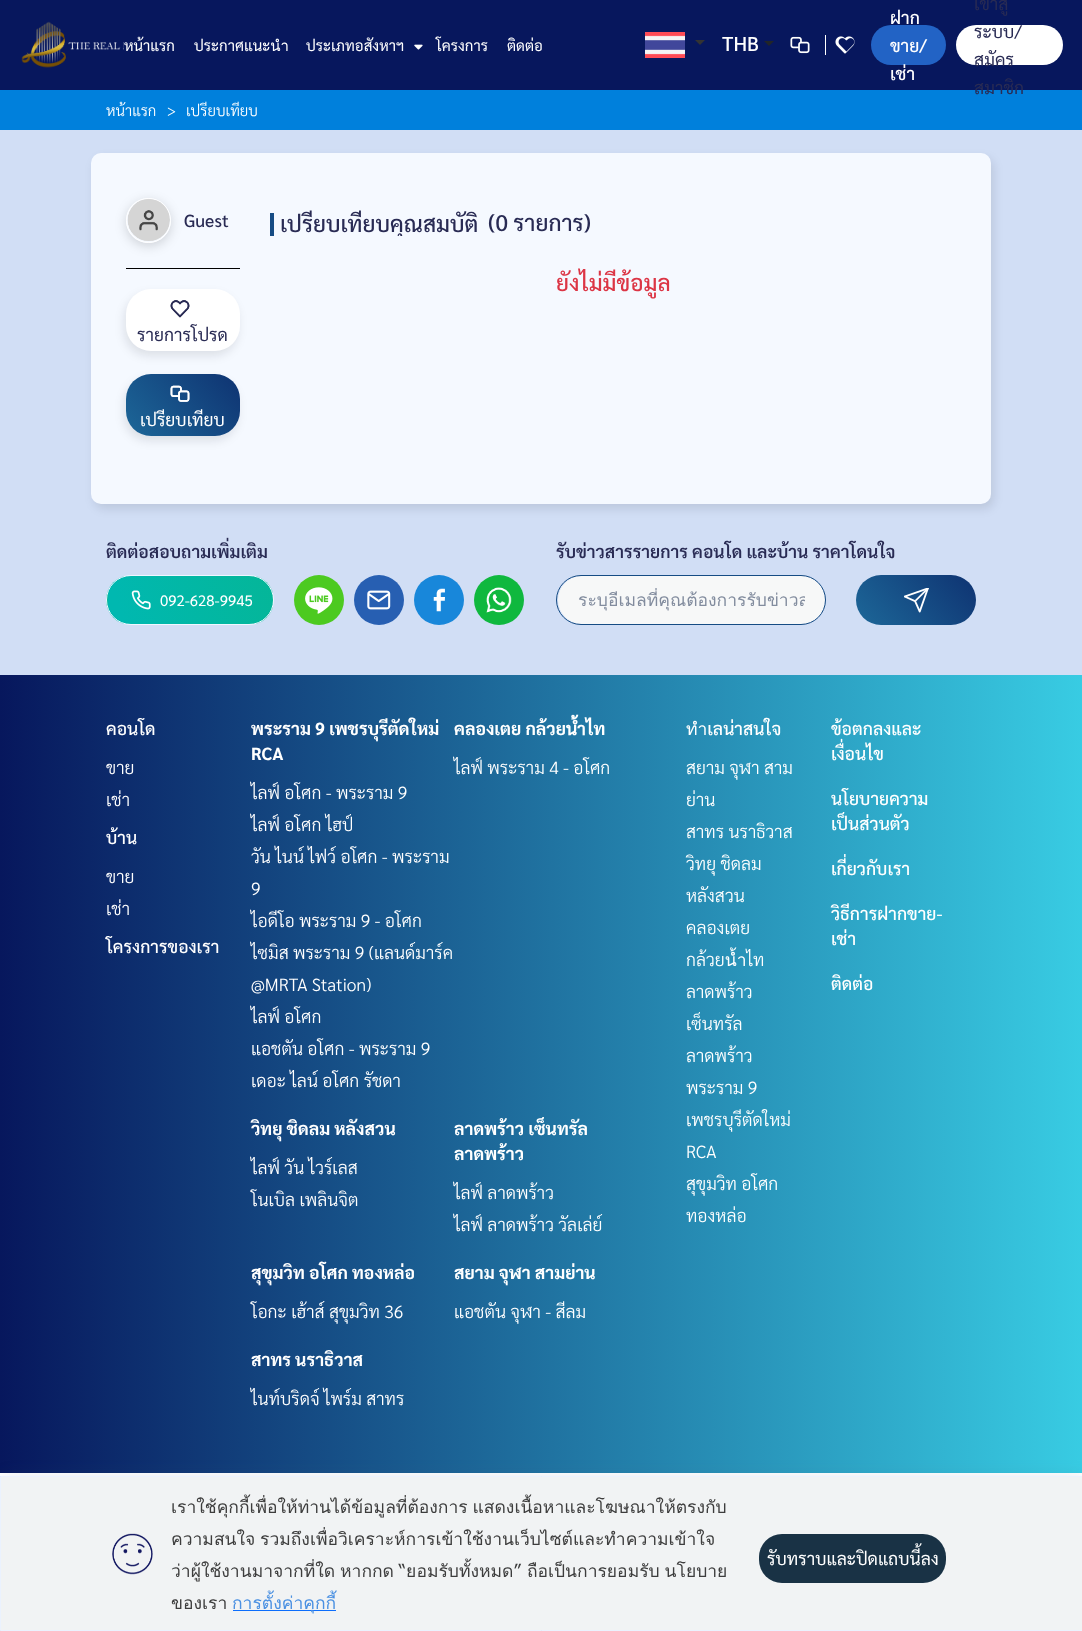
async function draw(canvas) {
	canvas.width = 1082;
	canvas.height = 1631;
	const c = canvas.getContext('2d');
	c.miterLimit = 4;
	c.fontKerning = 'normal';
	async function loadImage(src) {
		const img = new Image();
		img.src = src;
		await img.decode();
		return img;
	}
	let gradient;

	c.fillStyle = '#d1def5';
	c.fillRect(0, 0, 1082, 1631);
	c.fillStyle = '#07175d';
	c.fillRect(0, 0, 1082, 90);
	c.drawImage(await loadImage('img1.png'), 21, 21, 103, 47);
	c.font = '15px Sarabun';
	c.fillStyle = '#fff';
	for (const [text, x, y] of [
		['หน้าแรก', 124, 51],
		['ประกาศแนะนำ', 194, 51],
		['ประเภทอสังหาฯ', 306, 51],
	]) {
		c.fillText(text, x, y);
	}
	c.drawImage(await loadImage('img2.png'), 414, 44, 9, 6);
	c.fillText('โครงการ', 436, 51);
	c.fillText('ติดต่อ', 507, 51);
	c.drawImage(await loadImage('img3.png'), 645, 32, 40, 26);
	c.fillStyle = '#333';
	c.beginPath();
	c.moveTo(695, 40);
	c.lineTo(705, 40);
	c.lineTo(700, 45);
	c.closePath();
	c.fill();
	c.font = '500 20px Sarabun';
	c.fillStyle = '#fff';
	c.fillText('THB', 722, 51);
	c.fillStyle = '#212529';
	c.beginPath();
	c.moveTo(764, 41);
	c.lineTo(774, 41);
	c.lineTo(769, 46);
	c.closePath();
	c.fill();
	c.fillStyle = '#fff';
	c.fillRect(825, 35, 1, 20);
	c.drawImage(await loadImage('img4.png'), 790, 36, 20, 18);
	c.drawImage(await loadImage('img5.png'), 835, 36, 20, 18);
	c.fillStyle = '#2263c5';
	c.beginPath();
	c.roundRect(871, 25, 75, 40, 20);
	c.fill();
	c.font = '500 17.5px Sarabun';
	c.fillStyle = '#fff';
	for (const [text, x, y] of [
		['ฝาก', 890, 24],
		['ขาย/', 890, 52],
		['เช่า', 890, 80],
	]) {
		c.fillText(text, x, y);
	}
	c.beginPath();
	c.roundRect(956, 25, 107, 40, 20);
	c.fill();
	c.font = '17.5px Sarabun';
	c.fillStyle = '#292b54';
	for (const [text, x, y] of [
		['เข้าสู่', 974, 10],
		['ระบบ/', 974, 38],
		['สมัคร', 974, 66],
	]) {
		c.fillText(text, x, y);
	}
	c.fillStyle = '#0080dc';
	c.fillRect(0, 90, 1082, 40);
	c.fillStyle = '#292b54';
	c.fillText('สมาชิก', 974, 94);
	c.font = '300 15px Sarabun';
	c.fillStyle = '#fff';
	for (const [text, x, y] of [
		['หน้าแรก', 106, 116],
		['>', 167, 116],
		['เปรียบเทียบ', 186, 116],
	]) {
		c.fillText(text, x, y);
	}
	c.fillStyle = '#0a0a101a';
	c.filter = 'blur(5px)';
	c.beginPath();
	c.roundRect(94, 158, 900, 351, 10);
	c.fill();
	c.filter = 'none';
	c.fillStyle = '#f5f9ff';
	c.beginPath();
	c.roundRect(91, 153, 900, 351, 10);
	c.fill();
	c.save();
	c.beginPath();
	c.moveTo(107, 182);
	c.lineTo(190, 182);
	c.lineTo(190, 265);
	c.lineTo(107, 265);
	c.closePath();
	c.moveTo(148.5, 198);
	c.bezierCurveTo(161, 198, 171, 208, 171, 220.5);
	c.bezierCurveTo(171, 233, 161, 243, 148.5, 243);
	c.bezierCurveTo(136, 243, 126, 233, 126, 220.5);
	c.bezierCurveTo(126, 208, 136, 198, 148.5, 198);
	c.closePath();
	c.clip('evenodd');
	c.fillStyle = '#00000029';
	c.filter = 'blur(6px)';
	c.beginPath();
	c.roundRect(126, 201, 45, 45, 22.5);
	c.fill();
	c.filter = 'none';
	c.restore();
	c.beginPath();
	c.arc(148.5, 220.5, 22, 0, 2 * Math.PI);
	c.strokeStyle = '#fff';
	c.stroke();
	c.drawImage(await loadImage('img6.png'), 127, 199, 43, 42);
	c.font = '500 17.5px Sarabun';
	c.fillStyle = '#292b54';
	c.fillText('Guest', 184, 227);
	c.fillStyle = '#164c84';
	c.fillRect(270, 213, 4, 23);
	c.save();
	c.beginPath();
	c.rect(270, 209, 208, 27);
	c.clip();
	c.font = '500 22.5px Sarabun';
	c.fillStyle = '#292b54';
	c.fillText('เปรียบเทียบคุณสมบัติ', 280, 232);
	c.restore();
	c.font = '500 22.5px Sarabun';
	c.fillStyle = '#292b54';
	c.fillText('(0 รายการ)', 488, 231);
	c.fillStyle = '#dc3545';
	c.fillText('ยังไม่มีข้อมูล', 556, 291);
	c.fillStyle = '#000';
	c.fillRect(126, 268, 114, 1);
	c.fillStyle = '#0a0a101a';
	c.filter = 'blur(5px)';
	c.beginPath();
	c.roundRect(124, 294, 114, 62, 25);
	c.fill();
	c.filter = 'none';
	c.fillStyle = '#fff';
	c.beginPath();
	c.roundRect(126, 289, 114, 62, 25);
	c.fill();
	c.drawImage(await loadImage('img7.png'), 170, 300, 20, 18);
	c.font = '17.5px Sarabun';
	c.fillStyle = '#292b54';
	c.fillText('รายการโปรด', 137, 341);
	c.fillStyle = '#0a0a101a';
	c.filter = 'blur(5px)';
	c.beginPath();
	c.roundRect(124, 379, 114, 62, 25);
	c.fill();
	c.filter = 'none';
	gradient = c.createLinearGradient(283, 320, -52, 606);
	gradient.addColorStop(0, '#07175d');
	gradient.addColorStop(1, '#38cce3');
	c.fillStyle = gradient;
	c.beginPath();
	c.roundRect(126, 374, 114, 62, 25);
	c.fill();
	c.drawImage(await loadImage('img8.png'), 170, 385, 20, 17);
	c.fillStyle = '#fff';
	c.fillText('เปรียบเทียบ', 140, 426);
	c.font = '600 17.5px Sarabun';
	c.fillStyle = '#292b54';
	c.fillText('ติดต่อสอบถามเพิ่มเติม', 106, 558);
	c.save();
	c.beginPath();
	c.roundRect(106, 575, 168, 50, 25);
	c.clip();
	gradient = c.createLinearGradient(-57, 626, 189, 547);
	gradient.addColorStop(0.06, '#00b8b0');
	gradient.addColorStop(1, '#07b58b');
	gradient.addColorStop(1, '#16a086');
	c.fillStyle = gradient;
	c.fillRect(106, 590, 2, 20);
	gradient = c.createLinearGradient(108, 626, 354, 547);
	gradient.addColorStop(0.06, '#00b8b0');
	gradient.addColorStop(1, '#07b58b');
	gradient.addColorStop(1, '#16a086');
	c.fillStyle = gradient;
	c.fillRect(108, 576, 165, 48);
	c.restore();
	c.beginPath();
	c.roundRect(106.5, 575.5, 167, 49, 24.5);
	c.strokeStyle = '#f0f7ff';
	c.stroke();
	c.drawImage(await loadImage('img9.png'), 131, 590, 20, 20);
	c.font = '15px Sarabun';
	c.fillStyle = '#fff';
	c.fillText('092-628-9945', 160, 606);
	c.fillStyle = '#4cca20';
	c.beginPath();
	c.arc(319, 600, 25, 0, 2 * Math.PI);
	c.fill();
	c.drawImage(await loadImage('img10.png'), 305, 587, 28, 27);
	c.fillStyle = '#275fb2';
	c.beginPath();
	c.arc(379, 600, 25, 0, 2 * Math.PI);
	c.fill();
	c.drawImage(await loadImage('img11.png'), 367, 590, 24, 20);
	c.fillStyle = '#1887da';
	c.beginPath();
	c.arc(439, 600, 25, 0, 2 * Math.PI);
	c.fill();
	c.drawImage(await loadImage('img12.png'), 433, 588, 12, 24);
	c.fillStyle = '#0fb83e';
	c.beginPath();
	c.arc(499, 600, 25, 0, 2 * Math.PI);
	c.fill();
	c.drawImage(await loadImage('img13.png'), 486, 587, 26, 26);
	c.font = '600 17.5px Sarabun';
	c.fillStyle = '#292b54';
	c.fillText('รับข่าวสารรายการ คอนโด และบ้าน ราคาโดนใจ', 556, 558);
	c.fillStyle = '#f7f8f8';
	c.beginPath();
	c.roundRect(558, 576, 267, 48, 24);
	c.fill();
	c.beginPath();
	c.roundRect(556.5, 575.5, 269, 49, 24.5);
	c.strokeStyle = '#164c84';
	c.stroke();
	c.save();
	c.beginPath();
	c.rect(578, 586, 227, 28);
	c.clip();
	c.font = '17.5px Loma';
	c.fillStyle = '#828c9e';
	c.fillText('ระบุอีเมลที่คุณต้องการรับข่าวส', 578, 606);
	c.restore();
	gradient = c.createLinearGradient(1013, 517, 688, 796);
	gradient.addColorStop(0, '#07175d');
	gradient.addColorStop(1, '#38cce3');
	c.fillStyle = gradient;
	c.beginPath();
	c.roundRect(856, 575, 120, 50, 25);
	c.fill();
	c.drawImage(await loadImage('img14.png'), 904, 588, 25, 25);
	gradient = c.createLinearGradient(0, 1088, 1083, 1088);
	gradient.addColorStop(0, '#07175d');
	gradient.addColorStop(1, '#38cce3');
	c.fillStyle = gradient;
	c.fillRect(0, 675, 1082, 798);
	c.font = '500 17.5px Sarabun';
	c.fillStyle = '#fff';
	c.fillText('คอนโด', 106, 735);
	c.font = '300 17.5px Sarabun';
	c.fillText('ขาย', 106, 774);
	c.fillText('เช่า', 106, 806);
	c.font = '500 17.5px Sarabun';
	c.fillText('บ้าน', 106, 844);
	c.font = '300 17.5px Sarabun';
	c.fillText('ขาย', 106, 883);
	c.fillText('เช่า', 106, 915);
	c.font = '500 17.5px Sarabun';
	c.fillText('โครงการของเรา', 106, 953);
	c.font = 'bold 17.5px Sarabun';
	c.fillText('พระราม 9 เพชรบุรีตัดใหม่', 251, 735);
	c.fillText('RCA', 251, 760);
	c.font = '300 17.5px Sarabun';
	for (const [text, x, y] of [
		['ไลฟ์ อโศก - พระราม 9', 251, 799],
		['ไลฟ์ อโศก ไฮป์', 251, 831],
		['วัน ไนน์ ไฟว์ อโศก - พระราม', 251, 863],
		['9', 251, 895],
		['ไอดีโอ พระราม 9 - อโศก', 251, 927],
		['ไซมิส พระราม 9 (แลนด์มาร์ค', 251, 959],
		['@MRTA Station)', 251, 991],
		['ไลฟ์ อโศก', 251, 1023],
		['แอชตัน อโศก - พระราม 9', 251, 1055],
		['เดอะ ไลน์ อโศก รัชดา', 251, 1087],
	]) {
		c.fillText(text, x, y);
	}
	c.font = 'bold 17.5px Sarabun';
	c.fillText('คลองเตย กล้วยน้ำไท', 454, 735);
	c.font = '300 17.5px Sarabun';
	c.fillText('ไลฟ์ พระราม 4 - อโศก', 454, 774);
	c.font = 'bold 17.5px Sarabun';
	c.fillText('วิทยุ ชิดลม หลังสวน', 251, 1135);
	c.font = '300 17.5px Sarabun';
	c.fillText('ไลฟ์ วัน ไวร์เลส', 251, 1174);
	c.fillText('โนเบิล เพลินจิต', 251, 1206);
	c.font = 'bold 17.5px Sarabun';
	c.fillText('ลาดพร้าว เซ็นทรัล', 454, 1135);
	c.fillText('ลาดพร้าว', 454, 1160);
	c.font = '300 17.5px Sarabun';
	c.fillText('ไลฟ์ ลาดพร้าว', 454, 1199);
	c.fillText('ไลฟ์ ลาดพร้าว วัลเล่ย์', 454, 1231);
	c.font = 'bold 17.5px Sarabun';
	c.fillText('สุขุมวิท อโศก ทองหล่อ', 251, 1279);
	c.font = '300 17.5px Sarabun';
	c.fillText('โอกะ เฮ้าส์ สุขุมวิท 36', 251, 1318);
	c.font = 'bold 17.5px Sarabun';
	c.fillText('สยาม จุฬา สามย่าน', 454, 1279);
	c.font = '300 17.5px Sarabun';
	c.fillText('แอชตัน จุฬา - สีลม', 454, 1318);
	c.font = 'bold 17.5px Sarabun';
	c.fillText('สาทร นราธิวาส', 251, 1366);
	c.font = '300 17.5px Sarabun';
	c.fillText('ไนท์บริดจ์ ไพร์ม สาทร', 251, 1405);
	c.font = '500 17.5px Sarabun';
	c.fillText('ทำเลน่าสนใจ', 686, 735);
	c.font = '300 17.5px Sarabun';
	for (const [text, x, y] of [
		['สยาม จุฬา สาม', 686, 774],
		['ย่าน', 686, 806],
		['สาทร นราธิวาส', 686, 838],
		['วิทยุ ชิดลม', 686, 870],
		['หลังสวน', 686, 902],
		['คลองเตย', 686, 934],
		['กล้วยน้ำไท', 686, 966],
		['ลาดพร้าว', 686, 998],
		['เซ็นทรัล', 686, 1030],
		['ลาดพร้าว', 686, 1062],
		['พระราม 9', 686, 1094],
		['เพชรบุรีตัดใหม่', 686, 1126],
		['RCA', 686, 1158],
		['สุขุมวิท อโศก', 686, 1190],
		['ทองหล่อ', 686, 1222],
	]) {
		c.fillText(text, x, y);
	}
	c.font = '500 17.5px Sarabun';
	for (const [text, x, y] of [
		['ข้อตกลงและ', 831, 735],
		['เงื่อนไข', 831, 760],
		['นโยบายความ', 831, 805],
		['เป็นส่วนตัว', 831, 830],
		['เกี่ยวกับเรา', 831, 875],
		['วิธีการฝากขาย-', 831, 920],
		['เช่า', 831, 945],
		['ติดต่อ', 831, 990],
	]) {
		c.fillText(text, x, y);
	}
	c.fillRect(0, 1473, 1082, 3);
	c.fillStyle = '#384b6c33';
	c.filter = 'blur(10px)';
	c.beginPath();
	c.rect(3, 1481, 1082, 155);
	c.fill();
	c.filter = 'none';
	c.fillStyle = '#f1f3f4';
	c.beginPath();
	c.rect(0.5, 1476.5, 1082, 154);
	c.fill();
	c.strokeStyle = '#ebf2fe';
	c.stroke();
	c.drawImage(await loadImage('img15.png'), 112, 1533, 41, 42);
	c.wordSpacing = '-1px';
	c.font = '17.5px Loma';
	c.fillStyle = '#3d3d3d';
	c.fillText('เราใช้คุกกี้เพื่อให้ท่านได้ข้อมูลที่ต้องการ แสดงเนื้อหาและโฆษณาให้ตรงกับ', 171, 1513);
	c.wordSpacing = '0px';
	c.fillText('ความสนใจ', 171, 1545);
	c.fillText('รวมถึงเพื่อวิเคราะห์การเข้าใช้งานเว็บไซต์และทำความเข้าใจ', 260, 1545);
	c.wordSpacing = '-1px';
	c.fillText('ว่าผู้ใช้งานมาจากที่ใด หากกด “ยอมรับทั้งหมด” ถือเป็นการยอมรับ นโยบาย', 171, 1577);
	c.wordSpacing = '0px';
	c.fillText('ของเรา', 171, 1609);
	c.fillStyle = '#0d6efd';
	c.fillRect(233, 1610, 103, 1);
	c.fillStyle = '#4a90e2';
	c.fillText('การตั้งค่าคุกกี้', 232, 1609);
	c.fillStyle = '#193245';
	c.beginPath();
	c.roundRect(759, 1534, 187, 49, 23);
	c.fill();
	c.font = '17.5px Sarabun';
	c.fillStyle = '#fff';
	c.fillText('รับทราบและปิดแถบนี้ลง', 767, 1565);
}

draw(document.querySelector('canvas'));
